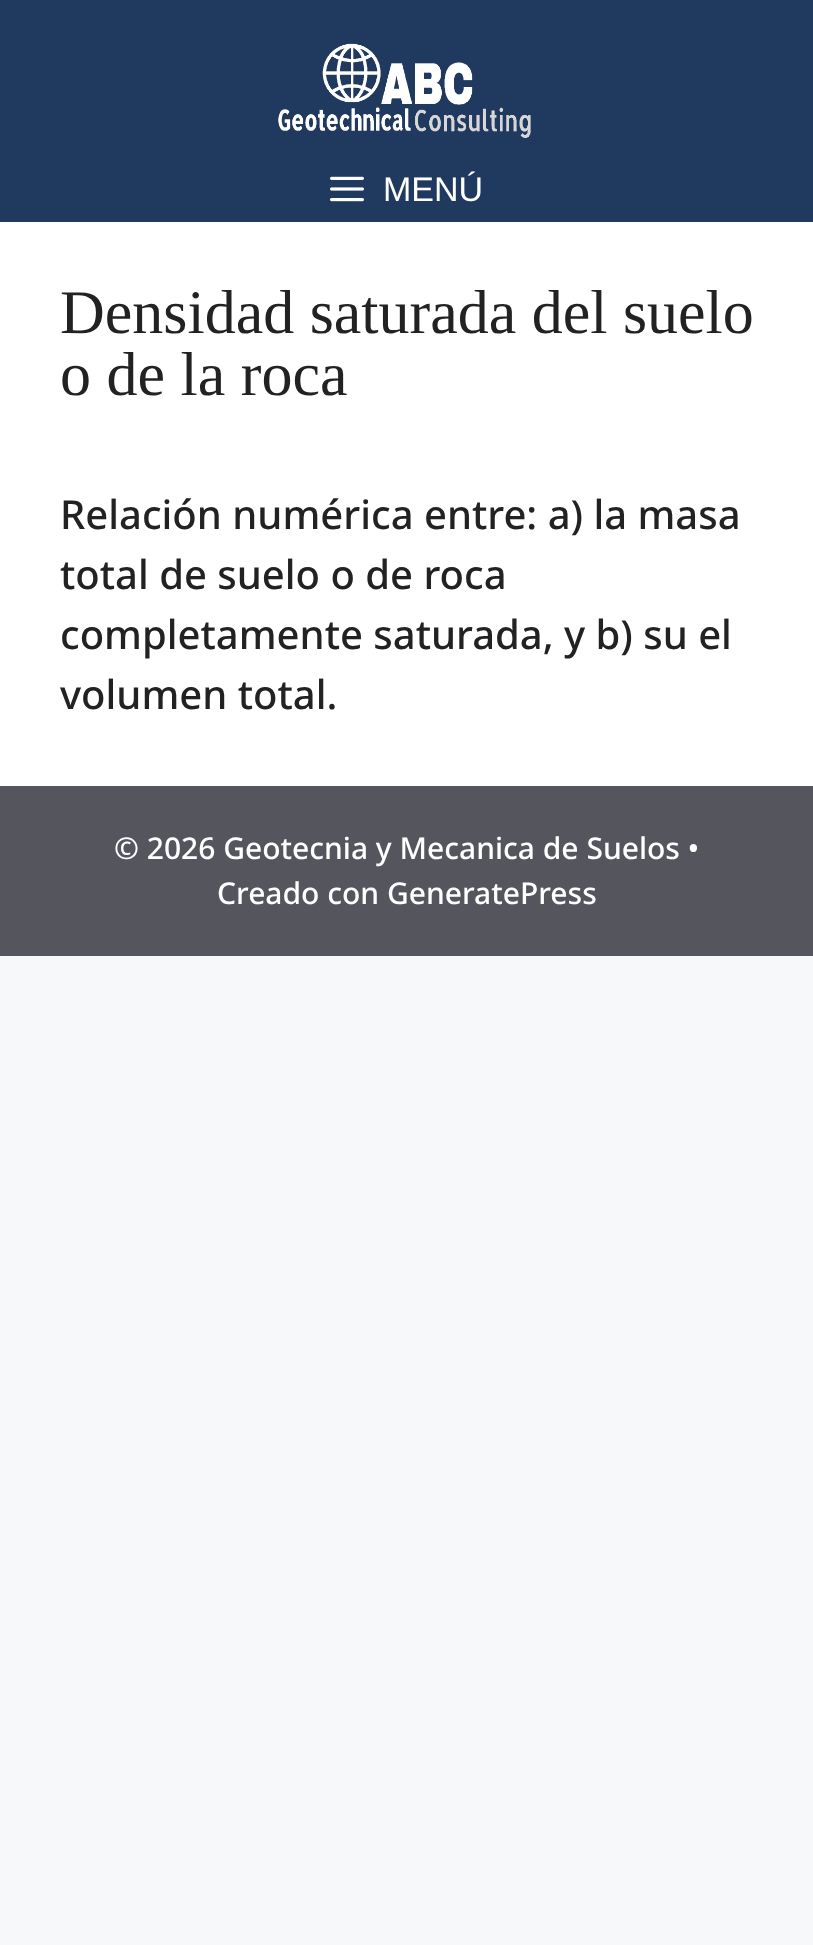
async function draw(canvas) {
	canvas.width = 813;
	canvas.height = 1945;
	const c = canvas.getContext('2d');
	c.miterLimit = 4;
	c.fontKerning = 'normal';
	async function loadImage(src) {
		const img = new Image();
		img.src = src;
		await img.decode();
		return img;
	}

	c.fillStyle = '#f7f8f9';
	c.fillRect(0, 0, 813, 1945);
	c.fillStyle = '#20395f';
	c.fillRect(0, 0, 813, 222);
	c.drawImage(await loadImage('img1.png'), 278, 43, 253, 95);
	c.drawImage(await loadImage('img2.png'), 330, 176, 34, 26);
	c.font = '34px Liberation Sans';
	c.fillStyle = '#fff';
	c.fillText('MENÚ', 383, 201);
	c.fillRect(0, 222, 813, 564);
	c.font = '62px Liberation Serif';
	c.fillStyle = '#222';
	c.fillText('Densidad saturada del suelo', 60, 333);
	c.fillText('o de la roca', 60, 395);
	c.font = '500 40px Noto Sans';
	for (const [text, x, y] of [
		['Relación numérica entre: a) la masa', 60, 529],
		['total de suelo o de roca', 60, 589],
		['completamente saturada, y b) su el', 60, 649],
		['volumen total.', 60, 709],
	]) {
		c.fillText(text, x, y);
	}
	c.fillStyle = '#55555e';
	c.fillRect(0, 786, 813, 170);
	c.font = '500 30px Noto Sans';
	c.fillStyle = '#fff';
	c.fillText('© 2026 Geotecnia y Mecanica de Suelos •', 114, 859);
	c.fillText('Creado con GeneratePress', 217, 904);
}

draw(document.querySelector('canvas'));
